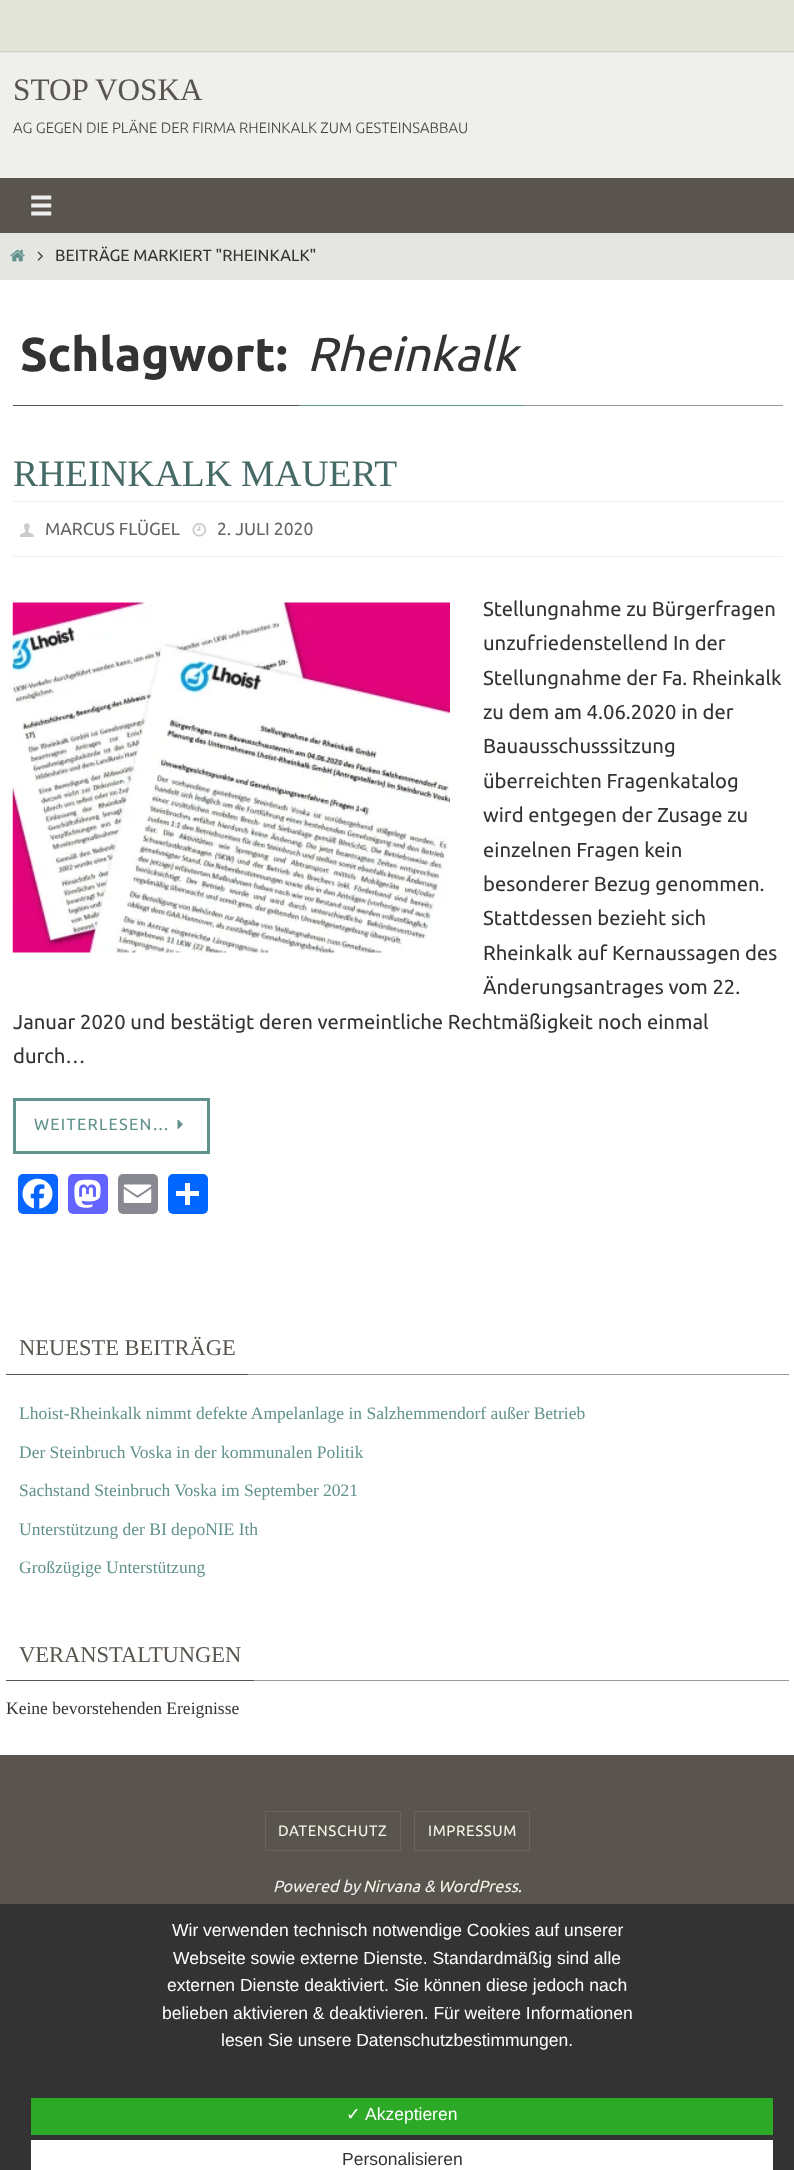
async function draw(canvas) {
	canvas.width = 794;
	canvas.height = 2170;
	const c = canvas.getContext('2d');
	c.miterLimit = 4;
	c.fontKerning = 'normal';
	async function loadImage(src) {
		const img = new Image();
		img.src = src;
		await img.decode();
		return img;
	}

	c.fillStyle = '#eff0ec';
	c.fillRect(0, 0, 794, 2170);
	c.fillStyle = '#e2e3d9';
	c.fillRect(0, 0, 794, 53);
	c.fillStyle = '#cecfc5';
	c.fillRect(0, 51, 794, 1);
	c.font = '31.25px Liberation Serif';
	c.fillStyle = '#59554e';
	c.fillText('STOP VOSKA', 13, 100);
	c.font = '300 15px Ubuntu';
	c.fillStyle = '#444';
	c.fillText('AG GEGEN DIE PLÄNE DER FIRMA RHEINKALK ZUM GESTEINSABBAU', 13, 133);
	c.fillStyle = '#59554e';
	c.fillRect(0, 178, 794, 55);
	c.drawImage(await loadImage('img1.png'), 31, 195, 21, 21);
	c.fillStyle = '#e5e6e2';
	c.fillRect(0, 233, 794, 47);
	c.drawImage(await loadImage('img2.png'), 10, 249, 15, 13);
	c.drawImage(await loadImage('img3.png'), 37, 251, 6, 10);
	c.font = '16.25px Ubuntu';
	c.fillStyle = '#333';
	c.fillText('BEITRÄGE MARKIERT "RHEINKALK"', 55, 261);
	for (const [x, y, w, h, color] of [
		[0, 280, 794, 1475, '#fff'],
		[524, 405, 259, 1, '#999'],
		[13, 405, 286, 1, '#59554e'],
	]) {
		c.fillStyle = color;
		c.fillRect(x, y, w, h);
	}
	c.font = 'bold 47.5px Ubuntu';
	c.fillStyle = '#333';
	c.fillText('Schlagwort:', 20, 371);
	c.fillStyle = '#61928c';
	c.fillRect(299, 405, 225, 1);
	c.font = 'italic 47.5px Ubuntu';
	c.fillStyle = '#333';
	c.fillText('Rheinkalk', 307, 371);
	c.font = '37.5px Liberation Serif';
	c.fillStyle = '#466a66';
	c.fillText('RHEINKALK MAUERT', 13, 486);
	c.fillStyle = '#eee';
	c.fillRect(13, 501, 770, 1);
	c.fillRect(13, 556, 770, 1);
	c.drawImage(await loadImage('img4.png'), 20, 523, 14, 14);
	c.font = '17.5px Ubuntu';
	c.fillStyle = '#666';
	c.fillText('MARCUS FLÜGEL', 45, 535);
	c.drawImage(await loadImage('img5.png'), 192, 523, 15, 14);
	c.fillText('2. JULI 2020', 217, 535);
	c.font = '20.25px Ubuntu';
	c.fillStyle = '#333';
	for (const [text, x, y] of [
		['Stellungnahme zu Bürgerfragen', 483, 616],
		['unzufriedenstellend In der', 483, 650],
		['Stellungnahme der Fa. Rheinkalk', 483, 685],
		['zu dem am 4.06.2020 in der', 483, 719],
		['Bauausschusssitzung', 483, 753],
		['überreichten Fragenkatalog', 483, 788],
		['wird entgegen der Zusage zu', 483, 822],
		['einzelnen Fragen kein', 483, 857],
		['besonderer Bezug genommen.', 483, 891],
		['Stattdessen bezieht sich', 483, 925],
		['Rheinkalk auf Kernaussagen des', 483, 960],
		['Änderungsantrages vom 22.', 483, 994],
		['Januar 2020 und bestätigt deren vermeintliche Rechtmäßigkeit noch einmal', 13, 1029],
		['durch…', 13, 1063],
	]) {
		c.fillText(text, x, y);
	}
	c.drawImage(await loadImage('img6.png'), 12, 602, 438, 351);
	c.strokeStyle = '#61928c';
	c.lineWidth = 3;
	c.strokeRect(14.5, 1099.5, 194, 53);
	c.letterSpacing = '1.25px';
	c.font = '16.25px Ubuntu';
	c.fillStyle = '#61928c';
	c.fillText('WEITERLESEN…', 34, 1130);
	c.drawImage(await loadImage('img7.png'), 177, 1119, 6, 10);
	c.fillStyle = '#0866ff';
	c.beginPath();
	c.roundRect(18, 1174, 40, 40, 5);
	c.fill();
	c.drawImage(await loadImage('img8.png'), 22, 1178, 31, 31);
	c.fillStyle = '#6364ff';
	c.beginPath();
	c.roundRect(68, 1174, 40, 40, 5);
	c.fill();
	c.drawImage(await loadImage('img9.png'), 74, 1179, 27, 29);
	c.fillStyle = '#888990';
	c.beginPath();
	c.roundRect(118, 1174, 40, 40, 5);
	c.fill();
	c.drawImage(await loadImage('img10.png'), 123, 1184, 29, 19);
	c.fillStyle = '#0166ff';
	c.beginPath();
	c.roundRect(168, 1174, 40, 40, 5);
	c.fill();
	for (const [x, y, w, h, color] of [
		[185, 1183, 5, 22, '#fff'],
		[176, 1191, 23, 5, '#fff'],
		[248, 1374, 541, 1, '#999'],
		[6, 1374, 242, 1, '#59554e'],
	]) {
		c.fillStyle = color;
		c.fillRect(x, y, w, h);
	}
	c.letterSpacing = '0px';
	c.font = '22.5px Liberation Serif';
	c.fillText('NEUESTE BEITRÄGE', 19, 1355);
	c.font = '17.5px Liberation Serif';
	c.fillStyle = '#61928c';
	for (const [text, x, y] of [
		['Lhoist-Rheinkalk nimmt defekte Ampelanlage in Salzhemmendorf außer Betrieb￼', 19, 1419],
		['Der Steinbruch Voska in der kommunalen Politik', 19, 1458],
		['Sachstand Steinbruch Voska im September 2021', 19, 1496],
		['Unterstützung der BI depoNIE Ith', 19, 1535],
		['Großzügige Unterstützung', 19, 1573],
	]) {
		c.fillText(text, x, y);
	}
	c.fillStyle = '#999';
	c.fillRect(254, 1680, 535, 1);
	c.fillStyle = '#59554e';
	c.fillRect(6, 1680, 248, 1);
	c.font = '22.5px Liberation Serif';
	c.fillText('VERANSTALTUNGEN', 19, 1662);
	c.font = '17.5px Liberation Serif';
	c.fillStyle = '#333';
	c.fillText('Keine bevorstehenden Ereignisse', 6, 1714);
	c.fillStyle = '#59554e';
	c.fillRect(0, 1755, 794, 149);
	c.strokeStyle = '#68645d';
	c.lineWidth = 1;
	c.strokeRect(265.5, 1811.5, 135, 39);
	c.letterSpacing = '0.6px';
	c.font = '15px Ubuntu';
	c.fillStyle = '#f3f4e5';
	c.fillText('DATENSCHUTZ', 278, 1836);
	c.strokeRect(414.5, 1811.5, 115, 39);
	c.fillText('IMPRESSUM', 428, 1836);
	c.letterSpacing = '0px';
	c.font = 'italic 16.25px Ubuntu';
	c.fillStyle = '#eee';
	c.fillText('Powered by', 273, 1892);
	c.fillStyle = '#f3f4e5';
	c.fillText('Nirvana', 363, 1892);
	c.fillStyle = '#eee';
	c.fillText('&', 424, 1892);
	c.fillStyle = '#f3f4e5';
	c.fillText('WordPress.', 438, 1892);
	c.fillStyle = '#333';
	c.fillRect(0, 1904, 794, 266);
	c.font = '17.5px Liberation Sans';
	c.fillStyle = '#fff';
	for (const [text, x, y] of [
		['Wir verwenden technisch notwendige Cookies auf unserer', 172, 1936],
		['Webseite sowie externe Dienste. Standardmäßig sind alle', 173, 1964],
		['externen Dienste deaktiviert. Sie können diese jedoch nach', 167, 1991],
		['belieben aktivieren & deaktivieren. Für weitere Informationen', 162, 2019],
		['lesen Sie unsere Datenschutzbestimmungen.', 221, 2046],
	]) {
		c.fillText(text, x, y);
	}
	c.fillStyle = '#2caa27';
	c.fillRect(31, 2098, 742, 37);
	c.font = '17.5px DejaVu Sans';
	c.fillStyle = '#fff';
	c.fillText('✓', 346, 2120);
	c.font = '17.5px Liberation Sans';
	c.fillText('Akzeptieren', 365, 2120);
	c.fillRect(31, 2140, 742, 30);
	c.fillStyle = '#333';
	c.fillText('Personalisieren', 342, 2165);
}

draw(document.querySelector('canvas'));
